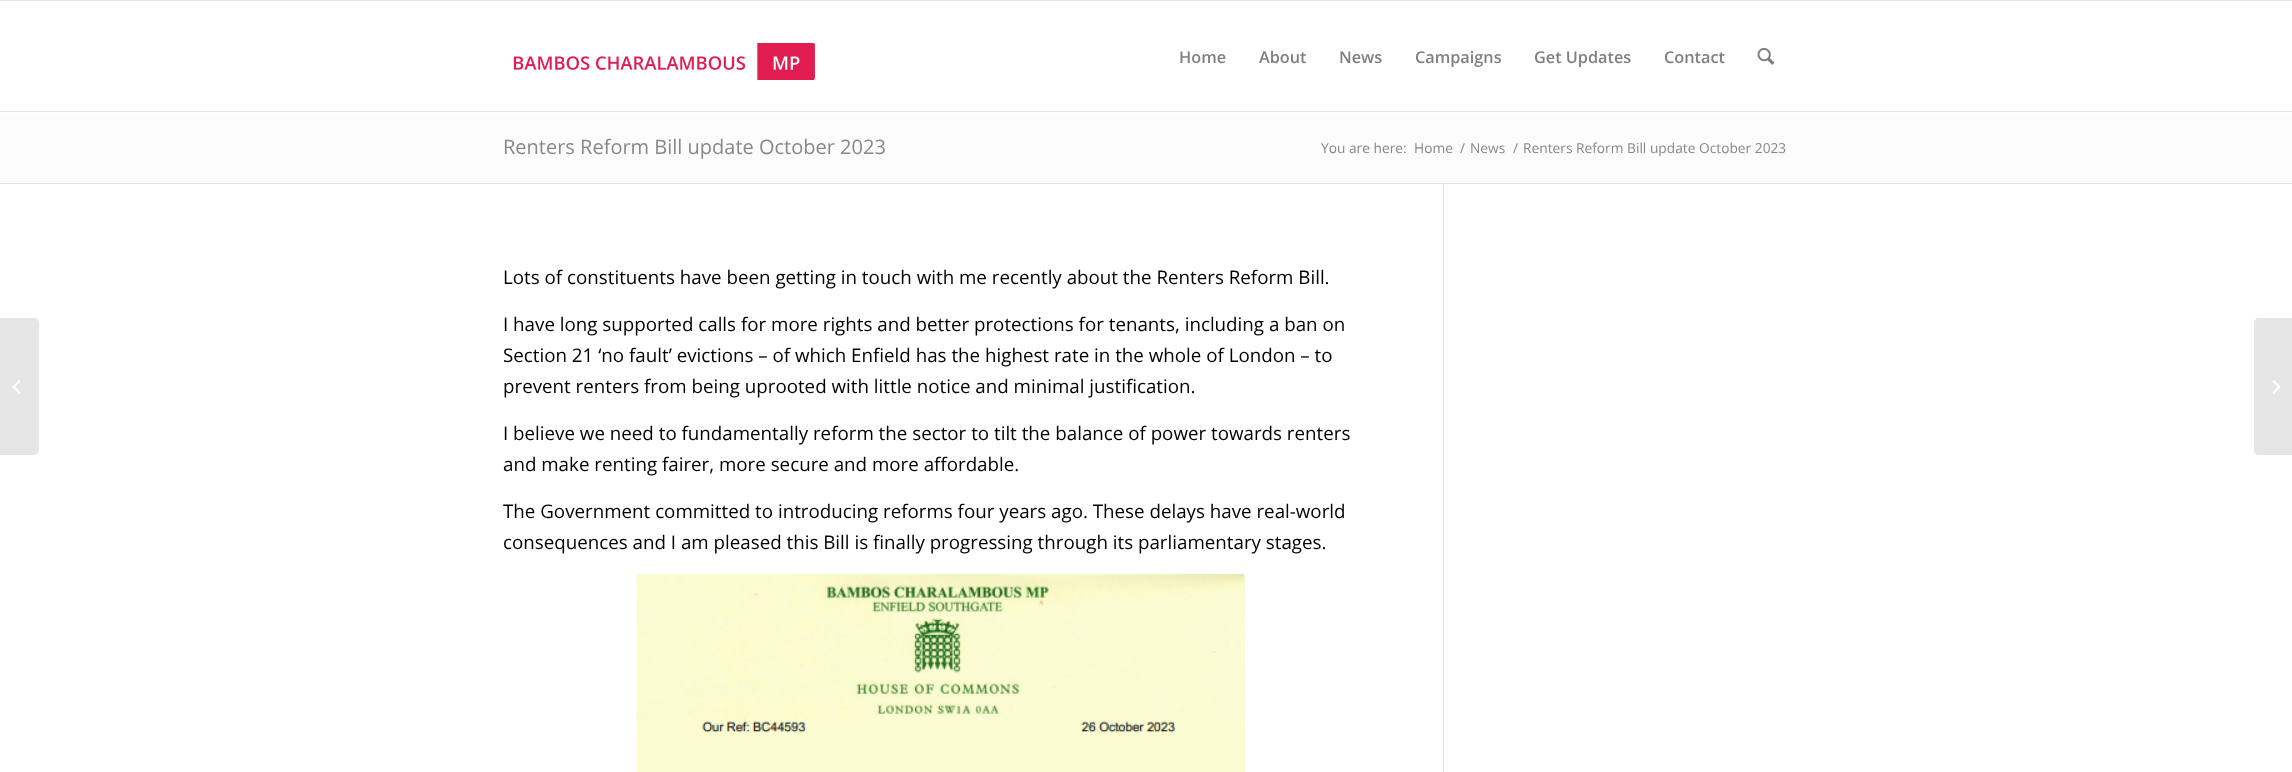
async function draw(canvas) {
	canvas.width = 2292;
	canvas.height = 772;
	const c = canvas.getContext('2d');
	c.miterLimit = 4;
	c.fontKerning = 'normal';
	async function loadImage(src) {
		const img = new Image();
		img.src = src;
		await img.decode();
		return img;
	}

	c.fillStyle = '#fff';
	c.fillRect(0, 0, 2292, 772);
	c.fillStyle = '#e1e1e1';
	c.fillRect(0, 0, 2292, 1);
	c.fillRect(0, 111, 2292, 1);
	c.drawImage(await loadImage('img1.png'), 513, 43, 302, 37);
	c.font = '600 16.25px Open Sans';
	c.fillStyle = '#808080';
	for (const [text, x, y] of [
		['Home', 1179, 63],
		['About', 1259, 63],
		['News', 1339, 63],
		['Campaigns', 1415, 63],
		['Get Updates', 1534, 63],
		['Contact', 1664, 63],
	]) {
		c.fillText(text, x, y);
	}
	c.drawImage(await loadImage('img2.png'), 1757, 47, 18, 18);
	c.fillStyle = '#e6e6e6';
	c.beginPath();
	c.roundRect(0, 318, 39, 137, [0, 5, 5, 0]);
	c.fill();
	c.drawImage(await loadImage('img3.png'), 12, 380, 9, 14);
	c.fillStyle = '#fcfcfc';
	c.fillRect(0, 113, 2292, 70);
	c.font = '20px Open Sans';
	c.fillStyle = '#888';
	c.fillText('Renters Reform Bill update October 2023', 503, 154);
	c.font = '13.75px Open Sans';
	for (const [text, x, y] of [
		['You are here:', 1321, 153],
		['Home', 1414, 153],
		['/', 1460, 153],
		['News', 1470, 153],
		['/', 1513, 153],
		['Renters Reform Bill update October 2023', 1523, 153],
	]) {
		c.fillText(text, x, y);
	}
	c.fillStyle = '#e1e1e1';
	c.fillRect(0, 183, 2292, 1);
	c.fillRect(1443, 184, 1, 588);
	c.font = '18.75px Open Sans';
	c.fillStyle = '#000';
	for (const [text, x, y] of [
		['Lots of constituents have been getting in touch with me recently about the Renters Reform Bill.', 503, 284],
		['I have long supported calls for more rights and better protections for tenants, including a ban on', 503, 331],
		['Section 21 ‘no fault’ evictions – of which Enfield has the highest rate in the whole of London – to', 503, 362],
		['prevent renters from being uprooted with little notice and minimal justification.', 503, 393],
		['I believe we need to fundamentally reform the sector to tilt the balance of power towards renters', 503, 440],
		['and make renting fairer, more secure and more affordable.', 503, 471],
		['The Government committed to introducing reforms four years ago. These delays have real-world', 503, 518],
		['consequences and I am pleased this Bill is finally progressing through its parliamentary stages.', 503, 549],
	]) {
		c.fillText(text, x, y);
	}
	c.drawImage(await loadImage('img4.png'), 636, 573, 609, 199);
	c.fillStyle = '#e6e6e6';
	c.beginPath();
	c.moveTo(2259, 318);
	c.lineTo(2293, 318);
	c.lineTo(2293, 455);
	c.lineTo(2259, 455);
	c.bezierCurveTo(2256, 455, 2254, 453, 2254, 450);
	c.lineTo(2254, 323);
	c.bezierCurveTo(2254, 320, 2256, 318, 2259, 318);
	c.closePath();
	c.fill();
	c.drawImage(await loadImage('img5.png'), 2272, 380, 9, 14);
}

draw(document.querySelector('canvas'));
